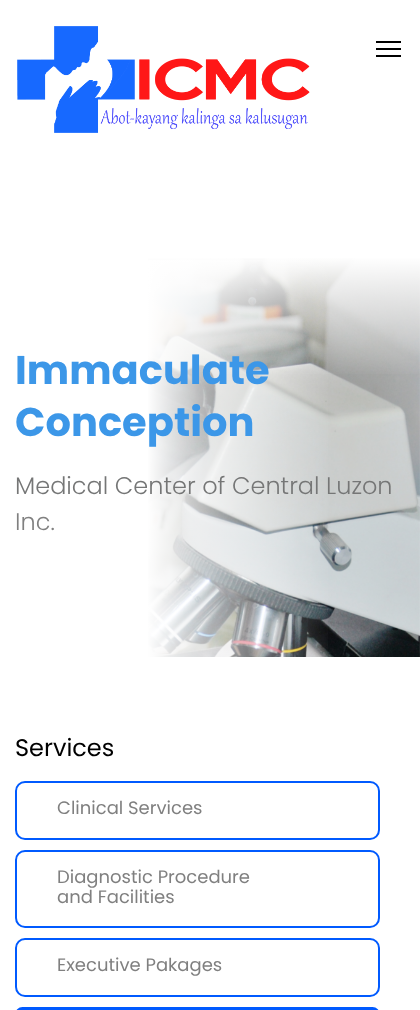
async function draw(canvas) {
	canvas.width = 420;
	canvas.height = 1010;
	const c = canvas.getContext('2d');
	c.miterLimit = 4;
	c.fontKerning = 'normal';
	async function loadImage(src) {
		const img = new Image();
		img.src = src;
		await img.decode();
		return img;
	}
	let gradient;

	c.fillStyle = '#fff';
	c.fillRect(0, 0, 420, 1010);
	c.drawImage(await loadImage('img1.png'), 17, 26, 293, 107);
	for (const [x, y, w, h, color] of [
		[376, 48, 25, 2, '#000'],
		[376, 41, 25, 2, '#000'],
		[376, 55, 25, 2, '#000'],
	]) {
		c.fillStyle = color;
		c.fillRect(x, y, w, h);
	}
	c.drawImage(await loadImage('img2.png'), 148, 258, 272, 399);
	gradient = c.createLinearGradient(210, 257, 210, 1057);
	gradient.addColorStop(0, '#fff');
	gradient.addColorStop(0.15, '#ffffff00');
	gradient.addColorStop(1, '#ffffff00');
	c.fillStyle = gradient;
	c.fillRect(148, 258, 272, 116);
	gradient = c.createLinearGradient(0, 657, 420, 657);
	gradient.addColorStop(0, '#fff');
	gradient.addColorStop(0.35, '#fff');
	gradient.addColorStop(0.79, '#ffffff00');
	gradient.addColorStop(1, '#ffffff00');
	c.fillStyle = gradient;
	c.fillRect(148, 260, 180, 397);
	c.font = 'bold 40px Poppins';
	c.fillStyle = '#3c97e8';
	c.fillText('Immaculate', 15, 384);
	c.fillText('Conception', 15, 436);
	c.font = '300 24px Poppins';
	c.fillStyle = '#757676';
	c.fillText('Medical Center of Central Luzon', 15, 494);
	c.fillStyle = '#808080';
	c.fillText('Inc.', 15, 530);
	c.font = '24px Poppins';
	c.fillStyle = '#000';
	c.fillText('Services', 15, 756);
	c.beginPath();
	c.roundRect(16, 782, 363, 57, 9);
	c.strokeStyle = '#005aff';
	c.lineWidth = 2;
	c.stroke();
	c.font = '18px Poppins';
	c.fillStyle = '#808080';
	c.fillText('Clinical Services', 57, 814);
	c.beginPath();
	c.roundRect(16, 851, 363, 76, 9);
	c.stroke();
	c.fillText('Diagnostic Procedure', 57, 883);
	c.fillText('and Facilities', 57, 903);
	c.beginPath();
	c.roundRect(16, 939, 363, 57, 9);
	c.stroke();
	c.fillText('Executive Pakages', 57, 971);
	c.fillStyle = '#005aff';
	c.beginPath();
	c.roundRect(16, 1008, 363, 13, 9);
	c.fill();
	c.stroke();
}

draw(document.querySelector('canvas'));
